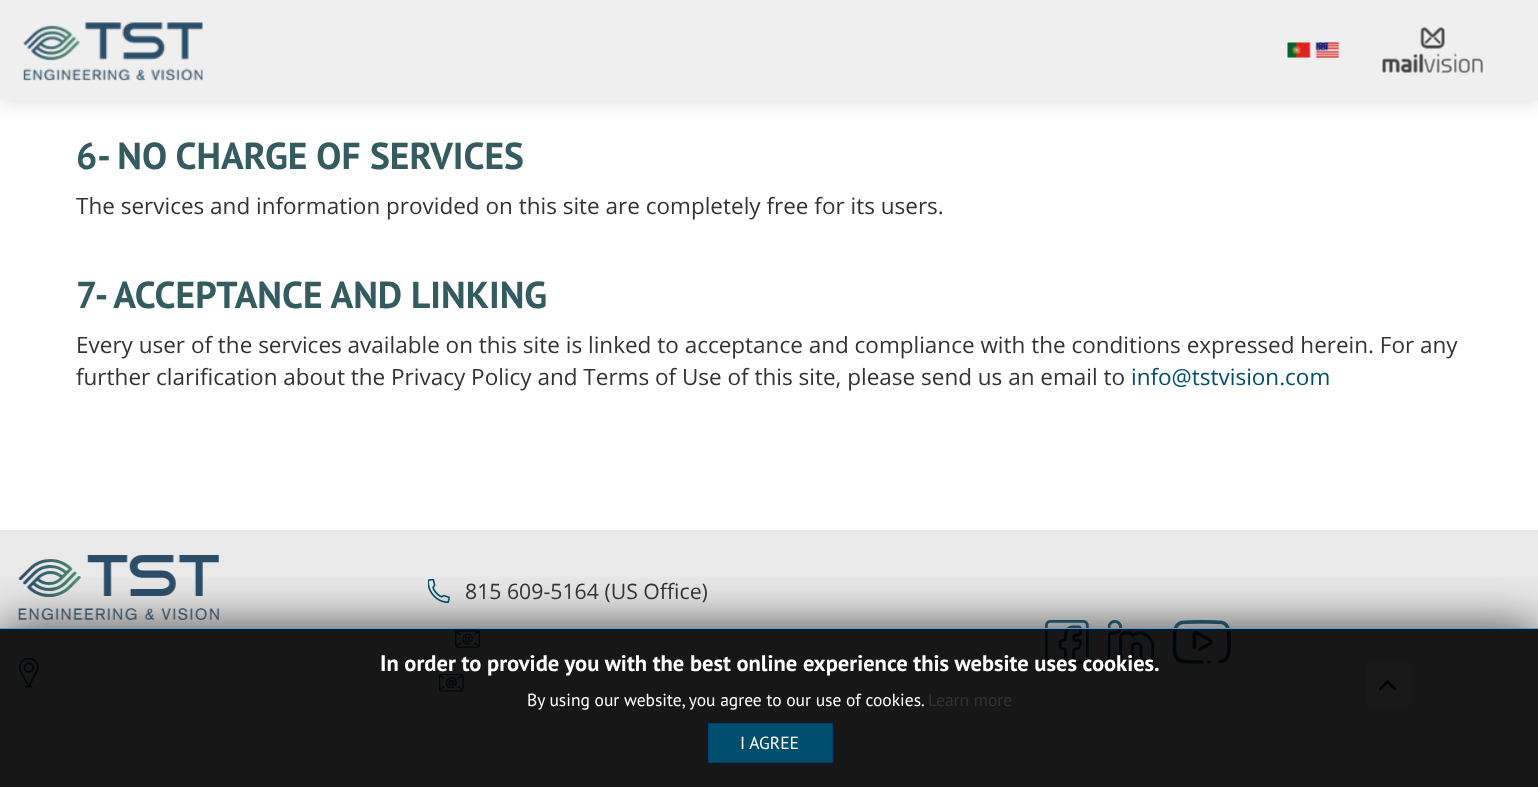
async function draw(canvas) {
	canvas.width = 1538;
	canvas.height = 787;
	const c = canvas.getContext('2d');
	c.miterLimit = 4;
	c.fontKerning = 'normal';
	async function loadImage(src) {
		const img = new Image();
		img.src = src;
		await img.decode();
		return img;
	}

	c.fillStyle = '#fff';
	c.fillRect(0, 0, 1538, 787);
	c.fillStyle = '#00000026';
	c.filter = 'blur(9.5px)';
	c.beginPath();
	c.rect(0, 1, 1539, 100);
	c.fill();
	c.filter = 'none';
	c.fillStyle = '#efefef';
	c.fillRect(0, 0, 1538, 100);
	c.drawImage(await loadImage('img1.png'), 23, 22, 180, 59);
	c.drawImage(await loadImage('img2.png'), 1287, 42, 24, 16);
	c.drawImage(await loadImage('img3.png'), 1315, 42, 25, 16);
	c.drawImage(await loadImage('img4.png'), 1382, 27, 101, 46);
	c.font = 'bold 37.5px PT Sans';
	c.fillStyle = '#335b60';
	c.fillText('6- NO CHARGE OF SERVICES', 76, 169);
	c.font = '22.5px Open Sans';
	c.fillStyle = '#333';
	c.fillText('The services and information provided on this site are completely free for its users.', 76, 214);
	c.font = 'bold 37.5px PT Sans';
	c.fillStyle = '#335b60';
	c.fillText('7- ACCEPTANCE AND LINKING', 76, 308);
	c.font = '22.5px Open Sans';
	c.fillStyle = '#333';
	c.fillText('Every user of the services available on this site is linked to acceptance and compliance with the conditions expressed herein. For any', 76, 353);
	c.fillText('further clarification about the Privacy Policy and Terms of Use of this site, please send us an email to', 76, 385);
	c.fillStyle = '#004e6d';
	c.fillText('info@tstvision.com', 1131, 385);
	c.fillStyle = '#e9e9e9';
	c.fillRect(0, 530, 1538, 257);
	c.drawImage(await loadImage('img5.png'), 18, 555, 201, 65);
	c.drawImage(await loadImage('img6.png'), 19, 658, 20, 30);
	c.drawImage(await loadImage('img7.png'), 428, 579, 22, 25);
	c.font = '21.25px Open Sans';
	c.fillStyle = '#333';
	c.fillText('815 609-5164 (US Office)', 465, 599);
	c.drawImage(await loadImage('img8.png'), 455, 630, 25, 18);
	c.drawImage(await loadImage('img9.png'), 439, 674, 25, 18);
	c.drawImage(await loadImage('img10.png'), 1045, 620, 44, 44);
	c.drawImage(await loadImage('img11.png'), 1108, 620, 46, 44);
	c.drawImage(await loadImage('img12.png'), 1173, 620, 58, 44);
	c.fillStyle = '#f2f2f2';
	c.beginPath();
	c.rect(1364.5, 660.5, 49, 49);
	c.fill();
	c.strokeStyle = '#ddd';
	c.stroke();
	c.drawImage(await loadImage('img13.png'), 1378, 680, 19, 11);
	c.save();
	c.beginPath();
	c.rect(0, 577, 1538, 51);
	c.clip();
	c.fillStyle = '#444';
	c.filter = 'blur(25px)';
	c.beginPath();
	c.rect(0, 628, 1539, 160);
	c.fill();
	c.filter = 'none';
	c.restore();
	c.fillStyle = '#37a4fc';
	c.fillRect(0, 628, 1538, 1);
	c.fillStyle = '#000000e6';
	c.fillRect(0, 629, 1538, 158);
	c.font = 'bold 22.5px PT Sans';
	c.fillStyle = '#fff';
	c.fillText('In order to provide you with the best online experience this website uses cookies.', 380, 671);
	c.font = '17.5px PT Sans';
	c.fillText('By using our website, you agree to our use of cookies.', 527, 706);
	c.fillStyle = '#333';
	c.fillText('Learn more', 928, 706);
	c.fillStyle = '#004e6d';
	c.beginPath();
	c.rect(708.5, 723.5, 124, 39);
	c.fill();
	c.strokeStyle = '#024175';
	c.stroke();
	c.fillStyle = '#fff';
	c.fillText('I AGREE', 740, 749);
}

draw(document.querySelector('canvas'));
